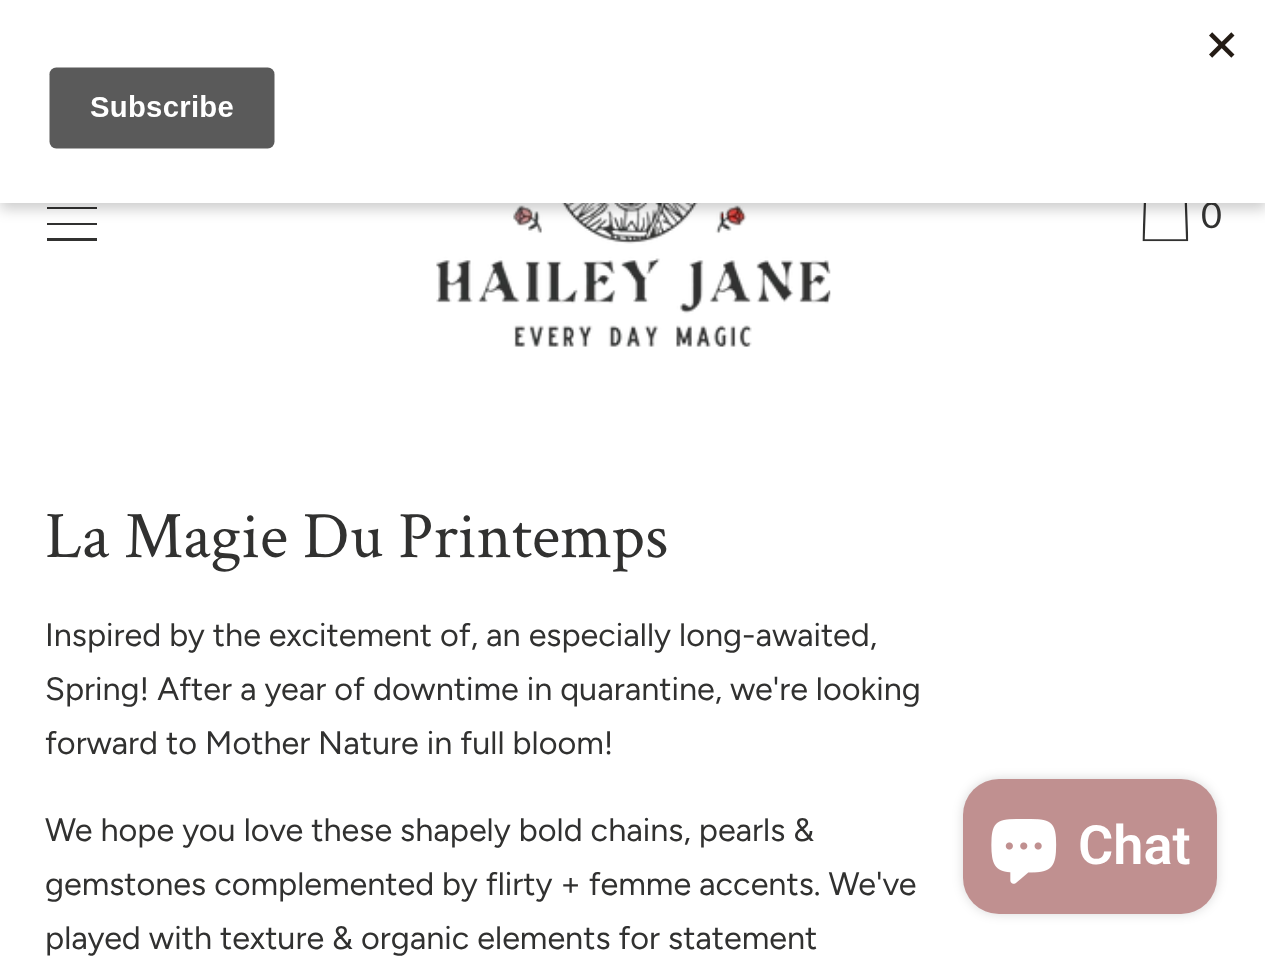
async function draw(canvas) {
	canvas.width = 1265;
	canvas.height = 960;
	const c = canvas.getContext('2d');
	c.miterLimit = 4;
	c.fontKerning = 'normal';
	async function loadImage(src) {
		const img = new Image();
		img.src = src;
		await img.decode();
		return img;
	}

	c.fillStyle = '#fff';
	c.fillRect(0, 0, 1265, 960);
	c.fillStyle = '#313130';
	c.beginPath();
	c.moveTo(47, 238);
	c.lineTo(97, 238);
	c.lineTo(97, 241);
	c.lineTo(47, 241);
	c.closePath();
	c.moveTo(47, 223);
	c.lineTo(97, 223);
	c.lineTo(97, 225);
	c.lineTo(47, 225);
	c.closePath();
	c.moveTo(47, 207);
	c.lineTo(97, 207);
	c.lineTo(97, 209);
	c.lineTo(47, 209);
	c.closePath();
	c.fill('evenodd');
	c.drawImage(await loadImage('img2.png'), 436, 203, 395, 144);
	c.drawImage(await loadImage('img3.png'), 1142, 203, 47, 39);
	c.fillStyle = '#00000033';
	c.filter = 'blur(7px)';
	c.beginPath();
	c.rect(0, 7, 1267, 202);
	c.fill();
	c.filter = 'none';
	c.font = '36px Lato';
	c.fillStyle = '#313130';
	c.fillText('0', 1201, 228);
	c.fillStyle = '#fff';
	c.fillRect(0, 0, 1265, 203);
	c.drawImage(await loadImage('img1.png'), 49, 32, 1186, 117);
	c.font = '66.5px Crimson Text';
	c.fillStyle = '#313130';
	c.fillText('La Magie Du Printemps', 45, 557);
	c.font = '32.4px Figtree';
	for (const [text, x, y] of [
		['Inspired by the excitement of, an especially long-awaited,', 45, 646],
		['Spring! After a year of downtime in quarantine, we\'re looking', 45, 700],
		['forward to Mother Nature in full bloom!', 45, 754],
		['We hope you love these shapely bold chains, pearls &', 45, 841],
		['gemstones complemented by flirty + femme accents. We\'ve', 45, 895],
		['played with texture & organic elements for statement', 45, 949],
	]) {
		c.fillText(text, x, y);
	}
	c.fillStyle = '#00000026';
	c.filter = 'blur(5.5px)';
	c.beginPath();
	c.roundRect(963, 779, 254, 135, 36);
	c.fill();
	c.filter = 'none';
	c.fillStyle = '#c09090';
	c.beginPath();
	c.roundRect(963, 779, 254, 135, 36);
	c.fill();
	c.drawImage(await loadImage('img4.png'), 991, 819, 66, 65);
	c.font = '600 54px Roboto';
	c.fillStyle = '#fff';
	c.fillText('Chat', 1078, 864);
}

draw(document.querySelector('canvas'));
